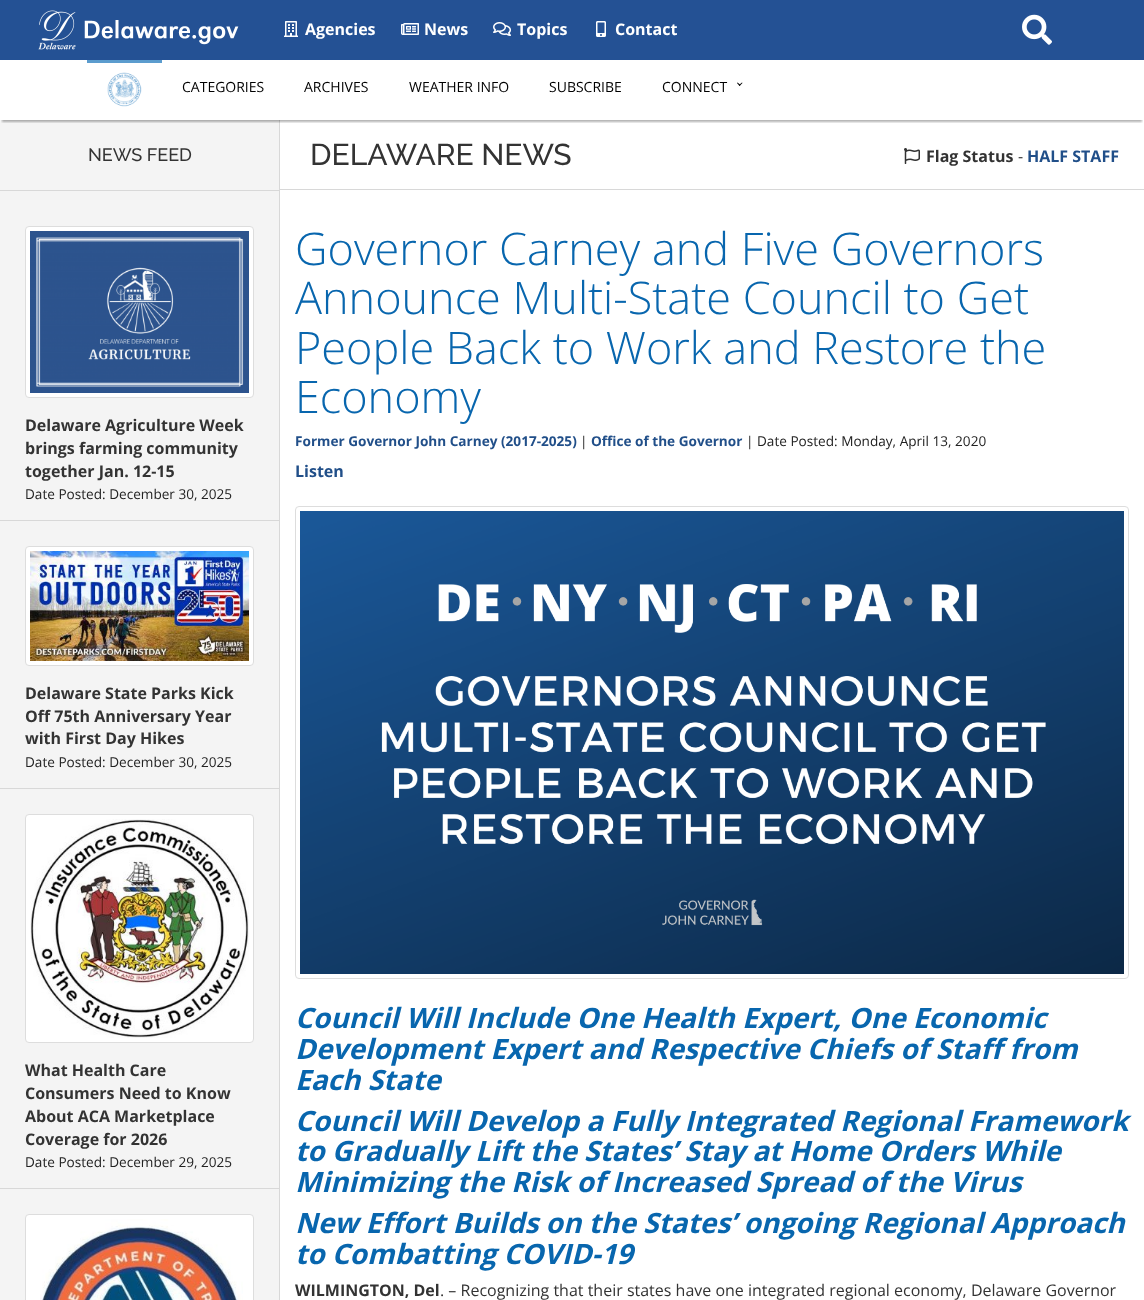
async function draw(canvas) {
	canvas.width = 1144;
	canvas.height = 1300;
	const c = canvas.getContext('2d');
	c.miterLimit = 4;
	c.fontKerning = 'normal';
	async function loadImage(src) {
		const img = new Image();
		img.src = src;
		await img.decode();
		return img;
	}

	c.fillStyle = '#fff';
	c.fillRect(0, 0, 1144, 1300);
	c.fillStyle = '#245194';
	c.fillRect(0, 0, 1144, 60);
	c.drawImage(await loadImage('img1.png'), 38, 10, 38, 40);
	c.drawImage(await loadImage('img2.png'), 84, 20, 155, 25);
	c.drawImage(await loadImage('img3.png'), 284, 21, 14, 16);
	c.font = 'bold 16px Open Sans';
	c.fillStyle = '#fff';
	c.fillText('Agencies', 305, 35);
	c.drawImage(await loadImage('img4.png'), 401, 23, 18, 12);
	c.fillText('News', 424, 35);
	c.drawImage(await loadImage('img5.png'), 493, 22, 18, 14);
	c.fillText('Topics', 517, 35);
	c.drawImage(await loadImage('img6.png'), 596, 21, 10, 16);
	c.fillText('Contact', 615, 35);
	c.drawImage(await loadImage('img7.png'), 1022, 14, 30, 31);
	c.fillStyle = '#f4f4f4';
	c.fillRect(0, 120, 279, 1180);
	c.fillStyle = '#d8d8d8';
	c.fillRect(279, 120, 1, 1180);
	c.save();
	c.beginPath();
	c.rect(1, 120, 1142, 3);
	c.clip();
	c.fillStyle = '#0000004d';
	c.filter = 'blur(1px)';
	c.beginPath();
	c.rect(2, 66, 1140, 56);
	c.fill();
	c.filter = 'none';
	c.restore();
	c.fillStyle = '#5b9cce';
	c.fillRect(87, 60, 75, 3);
	c.drawImage(await loadImage('img8.png'), 107, 72, 35, 35);
	c.font = '14px Open Sans';
	c.fillStyle = '#000';
	for (const [text, x, y] of [
		['CATEGORIES', 182, 92],
		['ARCHIVES', 304, 92],
		['WEATHER INFO', 409, 92],
		['SUBSCRIBE', 549, 92],
		['CONNECT', 662, 92],
	]) {
		c.fillText(text, x, y);
	}
	c.beginPath();
	c.moveTo(742, 82.5);
	c.lineTo(742.5, 83);
	c.lineTo(739.5, 86);
	c.lineTo(739, 85);
	c.closePath();
	c.fill();
	c.beginPath();
	c.moveTo(737.5, 82.5);
	c.lineTo(740.5, 85);
	c.lineTo(739.5, 86);
	c.lineTo(737, 83);
	c.closePath();
	c.fill();
	c.fillStyle = '#d8d8d8';
	c.fillRect(0, 190, 279, 1);
	c.font = '500 18px Raleway';
	c.fillStyle = '#333';
	c.fillText('NEWS FEED', 88, 161);
	c.fillStyle = '#d8d8d8';
	c.fillRect(0, 520, 279, 1);
	c.fillStyle = '#fff';
	c.beginPath();
	c.roundRect(25.5, 226.5, 228, 171, 3.5);
	c.fill();
	c.strokeStyle = '#ddd';
	c.stroke();
	c.drawImage(await loadImage('img9.png'), 30, 231, 219, 162);
	c.font = 'bold 16px Open Sans';
	c.fillStyle = '#333';
	for (const [text, x, y] of [
		['Delaware Agriculture Week', 25, 431],
		['brings farming community', 25, 454],
		['together Jan. 12-15', 25, 477],
	]) {
		c.fillText(text, x, y);
	}
	c.font = '13.6px Open Sans';
	c.fillStyle = '#222';
	c.fillText('Date Posted: December 30, 2025', 25, 499);
	c.fillStyle = '#d8d8d8';
	c.fillRect(0, 788, 279, 1);
	c.fillStyle = '#fff';
	c.beginPath();
	c.roundRect(25.5, 546.5, 228, 119, 3.5);
	c.fill();
	c.stroke();
	c.drawImage(await loadImage('img10.png'), 30, 551, 219, 110);
	c.font = 'bold 16px Open Sans';
	c.fillStyle = '#333';
	for (const [text, x, y] of [
		['Delaware State Parks Kick', 25, 699],
		['Off 75th Anniversary Year', 25, 722],
		['with First Day Hikes', 25, 744],
	]) {
		c.fillText(text, x, y);
	}
	c.font = '13.6px Open Sans';
	c.fillStyle = '#222';
	c.fillText('Date Posted: December 30, 2025', 25, 767);
	c.fillStyle = '#d8d8d8';
	c.fillRect(0, 1188, 279, 1);
	c.fillStyle = '#fff';
	c.beginPath();
	c.roundRect(25.5, 814.5, 228, 228, 3.5);
	c.fill();
	c.stroke();
	c.drawImage(await loadImage('img11.png'), 30, 819, 219, 219);
	c.font = 'bold 16px Open Sans';
	c.fillStyle = '#333';
	for (const [text, x, y] of [
		['What Health Care', 25, 1076],
		['Consumers Need to Know', 25, 1099],
		['About ACA Marketplace', 25, 1122],
		['Coverage for 2026', 25, 1145],
	]) {
		c.fillText(text, x, y);
	}
	c.font = '13.6px Open Sans';
	c.fillStyle = '#222';
	c.fillText('Date Posted: December 29, 2025', 25, 1167);
	c.fillStyle = '#fff';
	c.beginPath();
	c.roundRect(25.5, 1214.5, 228, 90, 3.5);
	c.fill();
	c.stroke();
	c.drawImage(await loadImage('img12.png'), 40, 1219, 203, 81);
	c.fillStyle = '#d8d8d8';
	c.fillRect(280, 189, 864, 1);
	c.font = '500 30px Raleway';
	c.fillStyle = '#333';
	c.fillText('DELAWARE NEWS', 310, 165);
	c.drawImage(await loadImage('img13.png'), 904, 148, 16, 16);
	c.font = 'bold 16px Open Sans';
	c.fillText('Flag Status', 926, 162);
	c.font = '16px Open Sans';
	c.fillText('-', 1018, 162);
	c.font = 'bold 16px Open Sans';
	c.fillStyle = '#214f89';
	c.fillText('HALF STAFF', 1027, 162);
	c.font = '300 45px Open Sans';
	c.fillStyle = '#0866ae';
	for (const [text, x, y] of [
		['Governor Carney and Five Governors', 295, 265],
		['Announce Multi-State Council to Get', 295, 314],
		['People Back to Work and Restore the', 295, 364],
		['Economy', 295, 413],
	]) {
		c.fillText(text, x, y);
	}
	c.font = 'bold 13.6px Open Sans';
	c.fillStyle = '#214f89';
	c.fillText('Former Governor John Carney (2017-2025)', 295, 446);
	c.font = '13.6px Open Sans';
	c.fillStyle = '#222';
	c.fillText('|', 580, 446);
	c.font = 'bold 13.6px Open Sans';
	c.fillStyle = '#214f89';
	c.fillText('Office of the Governor', 591, 446);
	c.font = '13.6px Open Sans';
	c.fillStyle = '#222';
	c.fillText('| Date Posted: Monday, April 13, 2020', 746, 446);
	c.font = 'bold 16px Open Sans';
	c.fillStyle = '#214f89';
	c.fillText('Listen', 295, 477);
	c.beginPath();
	c.roundRect(295.5, 506.5, 833, 472, 3.5);
	c.stroke();
	c.drawImage(await loadImage('img14.png'), 300, 511, 824, 463);
	c.font = 'italic bold 28px Open Sans';
	c.fillStyle = '#0866ae';
	for (const [text, x, y] of [
		['Council Will Include One Health Expert, One Economic', 295, 1028],
		['Development Expert and Respective Chiefs of Staff from', 295, 1059],
		['Each State', 295, 1090],
		['Council Will Develop a Fully Integrated Regional Framework', 295, 1131],
		['to Gradually Lift the States’ Stay at Home Orders While', 295, 1161],
		['Minimizing the Risk of Increased Spread of the Virus', 295, 1192],
		['New Effort Builds on the States’ ongoing Regional Approach', 295, 1233],
		['to Combatting COVID-19', 295, 1264],
	]) {
		c.fillText(text, x, y);
	}
	c.font = 'bold 16px Open Sans';
	c.fillStyle = '#333';
	c.fillText('WILMINGTON, Del', 295, 1296);
	c.font = '16px Open Sans';
	c.fillText('. – Recognizing that their states have one integrated regional economy, Delaware Governor', 440, 1296);
}

draw(document.querySelector('canvas'));
